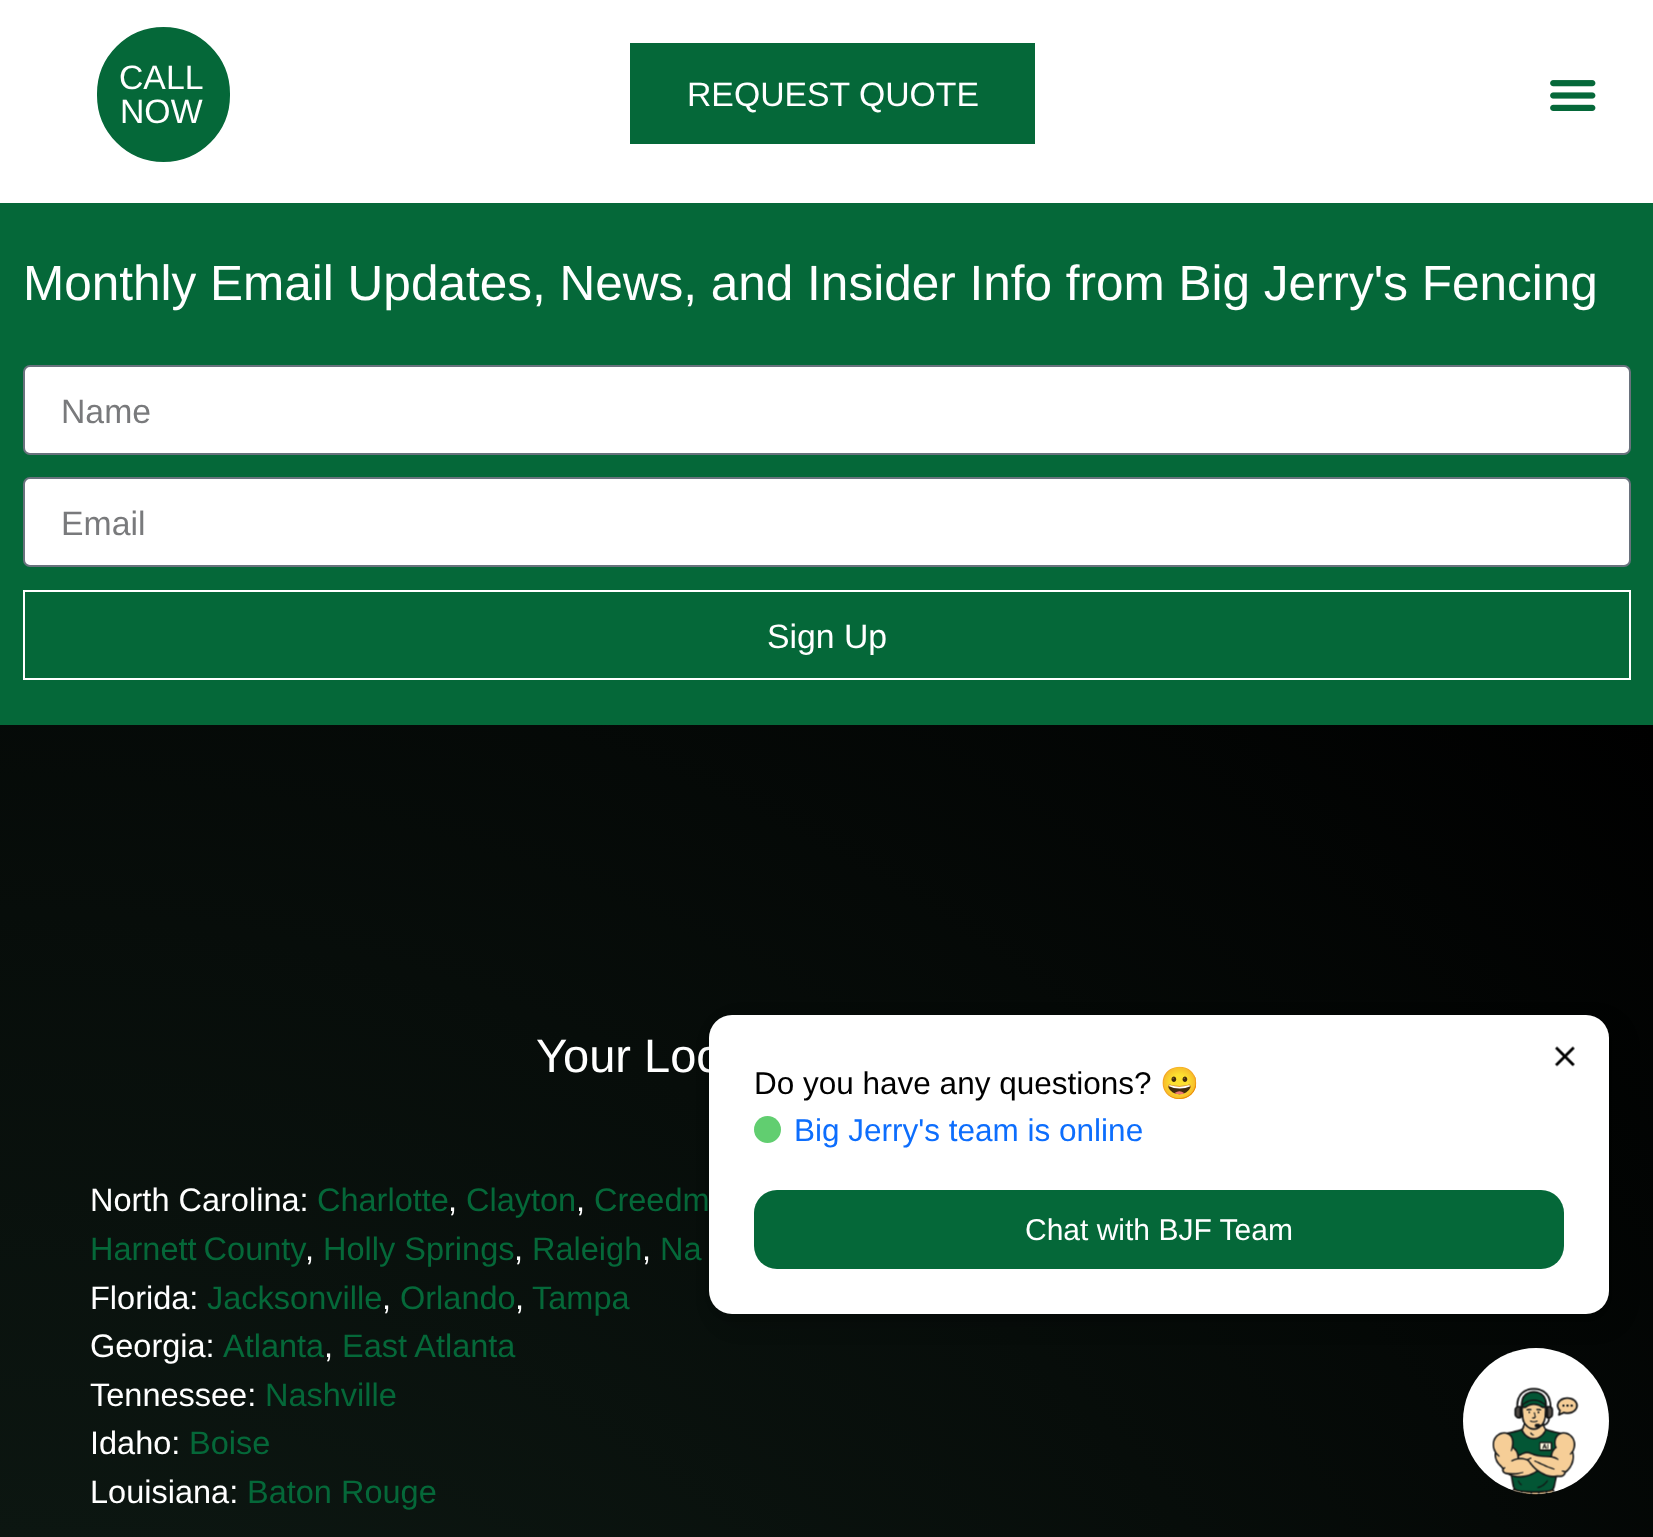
async function draw(canvas) {
	canvas.width = 1653;
	canvas.height = 1537;
	const c = canvas.getContext('2d');
	c.miterLimit = 4;
	c.fontKerning = 'normal';
	async function loadImage(src) {
		const img = new Image();
		img.src = src;
		await img.decode();
		return img;
	}
	let gradient;

	c.fillStyle = '#fff';
	c.fillRect(0, 0, 1653, 1537);
	c.fillStyle = '#056839';
	c.beginPath();
	c.roundRect(96, 26, 135, 137, 67.5);
	c.fill();
	c.strokeStyle = '#fff';
	c.lineWidth = 2;
	c.stroke();
	c.font = '33.75px Liberation Sans';
	c.fillStyle = '#fff';
	c.fillText('CALL', 119, 89);
	c.fillText('NOW', 120, 123);
	c.fillStyle = '#056839';
	c.fillRect(630, 43, 405, 101);
	c.fillStyle = '#fff';
	c.fillText('REQUEST QUOTE', 687, 106);
	c.drawImage(await loadImage('img1.png'), 1550, 80, 46, 31);
	c.fillStyle = '#056839';
	c.fillRect(0, 203, 1653, 522);
	c.font = '49.5px Liberation Sans';
	c.fillStyle = '#fff';
	c.fillText('Monthly Email Updates, News, and Insider Info from Big Jerry\'s Fencing', 23, 300);
	c.beginPath();
	c.roundRect(24, 366, 1606, 88, 6);
	c.fill();
	c.strokeStyle = '#69727d';
	c.stroke();
	c.font = '33.75px Liberation Sans';
	c.fillStyle = '#797a7c';
	c.fillText('Name', 61, 423);
	c.fillStyle = '#fff';
	c.beginPath();
	c.roundRect(24, 478, 1606, 88, 6);
	c.fill();
	c.stroke();
	c.fillStyle = '#797a7c';
	c.fillText('Email', 61, 535);
	c.strokeStyle = '#fff';
	c.strokeRect(24, 591, 1606, 88);
	c.fillStyle = '#fff';
	c.fillText('Sign Up', 767, 648);
	gradient = c.createRadialGradient(0, 2355.44, 0, 0, 2355.44, 2339);
	gradient.addColorStop(0, '#13231b');
	gradient.addColorStop(1, '#000');
	c.fillStyle = gradient;
	c.beginPath();
	c.rect(0, 725, 1653, 812);
	c.save();
	c.clip();
	c.scale(1, 2418 / 2339);
	c.fillRect(0, 0, 1653, 1487);
	c.restore();
	c.font = '47px Liberation Sans';
	c.fillStyle = '#fff';
	c.fillText('Your Loc', 536, 1072);
	c.font = '32.5px Liberation Sans';
	c.fillText('North Carolina:', 90, 1211);
	c.fillStyle = '#056839';
	c.fillText('Charlotte', 317, 1211);
	c.fillStyle = '#fff';
	c.fillText(',', 448, 1211);
	c.fillStyle = '#056839';
	c.fillText('Clayton', 466, 1211);
	c.fillStyle = '#fff';
	c.fillText(',', 576, 1211);
	c.fillStyle = '#056839';
	c.fillText('Creedm', 594, 1211);
	c.wordSpacing = '-2px';
	c.fillText('Harnett County', 90, 1260);
	c.wordSpacing = '0px';
	c.fillStyle = '#fff';
	c.fillText(',', 305, 1260);
	c.fillStyle = '#056839';
	c.fillText('Holly Springs', 323, 1260);
	c.fillStyle = '#fff';
	c.fillText(',', 514, 1260);
	c.fillStyle = '#056839';
	c.fillText('Raleigh', 532, 1260);
	c.fillStyle = '#fff';
	c.fillText(',', 642, 1260);
	c.fillStyle = '#056839';
	c.fillText('Na', 660, 1260);
	c.fillStyle = '#fff';
	c.fillText('Florida:', 90, 1309);
	c.fillStyle = '#056839';
	c.fillText('Jacksonville', 207, 1309);
	c.fillStyle = '#fff';
	c.fillText(',', 382, 1309);
	c.fillStyle = '#056839';
	c.fillText('Orlando', 400, 1309);
	c.fillStyle = '#fff';
	c.fillText(',', 515, 1309);
	c.fillStyle = '#056839';
	c.fillText('Tampa', 532, 1309);
	c.fillStyle = '#fff';
	c.fillText('Georgia:', 90, 1357);
	c.fillStyle = '#056839';
	c.fillText('Atlanta', 223, 1357);
	c.fillStyle = '#fff';
	c.fillText(',', 324, 1357);
	c.fillStyle = '#056839';
	c.fillText('East Atlanta', 342, 1357);
	c.fillStyle = '#fff';
	c.fillText('Tennessee:', 90, 1406);
	c.fillStyle = '#056839';
	c.fillText('Nashville', 265, 1406);
	c.fillStyle = '#fff';
	c.fillText('Idaho:', 90, 1454);
	c.fillStyle = '#056839';
	c.fillText('Boise', 189, 1454);
	c.fillStyle = '#fff';
	c.fillText('Louisiana:', 90, 1503);
	c.fillStyle = '#056839';
	c.fillText('Baton Rouge', 247, 1503);
	c.fillStyle = '#0000001a';
	c.filter = 'blur(4.5px)';
	c.beginPath();
	c.roundRect(713, 1024, 891, 290, 18);
	c.fill();
	c.filter = 'none';
	c.fillStyle = '#fff';
	c.beginPath();
	c.arc(1536, 1421, 73, 0, 2 * Math.PI);
	c.fill();
	c.fillStyle = '#0000001a';
	c.filter = 'blur(7px)';
	c.beginPath();
	c.roundRect(709, 1015, 918, 317, 32);
	c.fill();
	c.filter = 'none';
	c.fillStyle = '#fff';
	c.beginPath();
	c.roundRect(709, 1015, 900, 299, 23);
	c.fill();
	c.drawImage(await loadImage('img2.png'), 1554, 1046, 21, 21);
	c.font = '31.5px Liberation Sans';
	c.fillStyle = '#000';
	c.fillText('Do you have any questions?', 754, 1094);
	c.font = '31.5px Noto Color Emoji';
	c.fillText('😀', 1160, 1094);
	c.fillStyle = '#61ce70';
	c.beginPath();
	c.arc(767.5, 1129.5, 13.5, 0, 2 * Math.PI);
	c.fill();
	c.font = '31.5px Liberation Sans';
	c.fillStyle = '#0d6efd';
	c.fillText('Big Jerry\'s team is online', 794, 1141);
	c.fillStyle = '#056839';
	c.beginPath();
	c.roundRect(754, 1190, 810, 79, 23);
	c.fill();
	c.font = '30px Liberation Sans';
	c.fillStyle = '#fff';
	c.fillText('Chat with BJF Team', 1025, 1240);
	c.drawImage(await loadImage('img3.png'), 1492, 1387, 87, 108);
}

draw(document.querySelector('canvas'));
